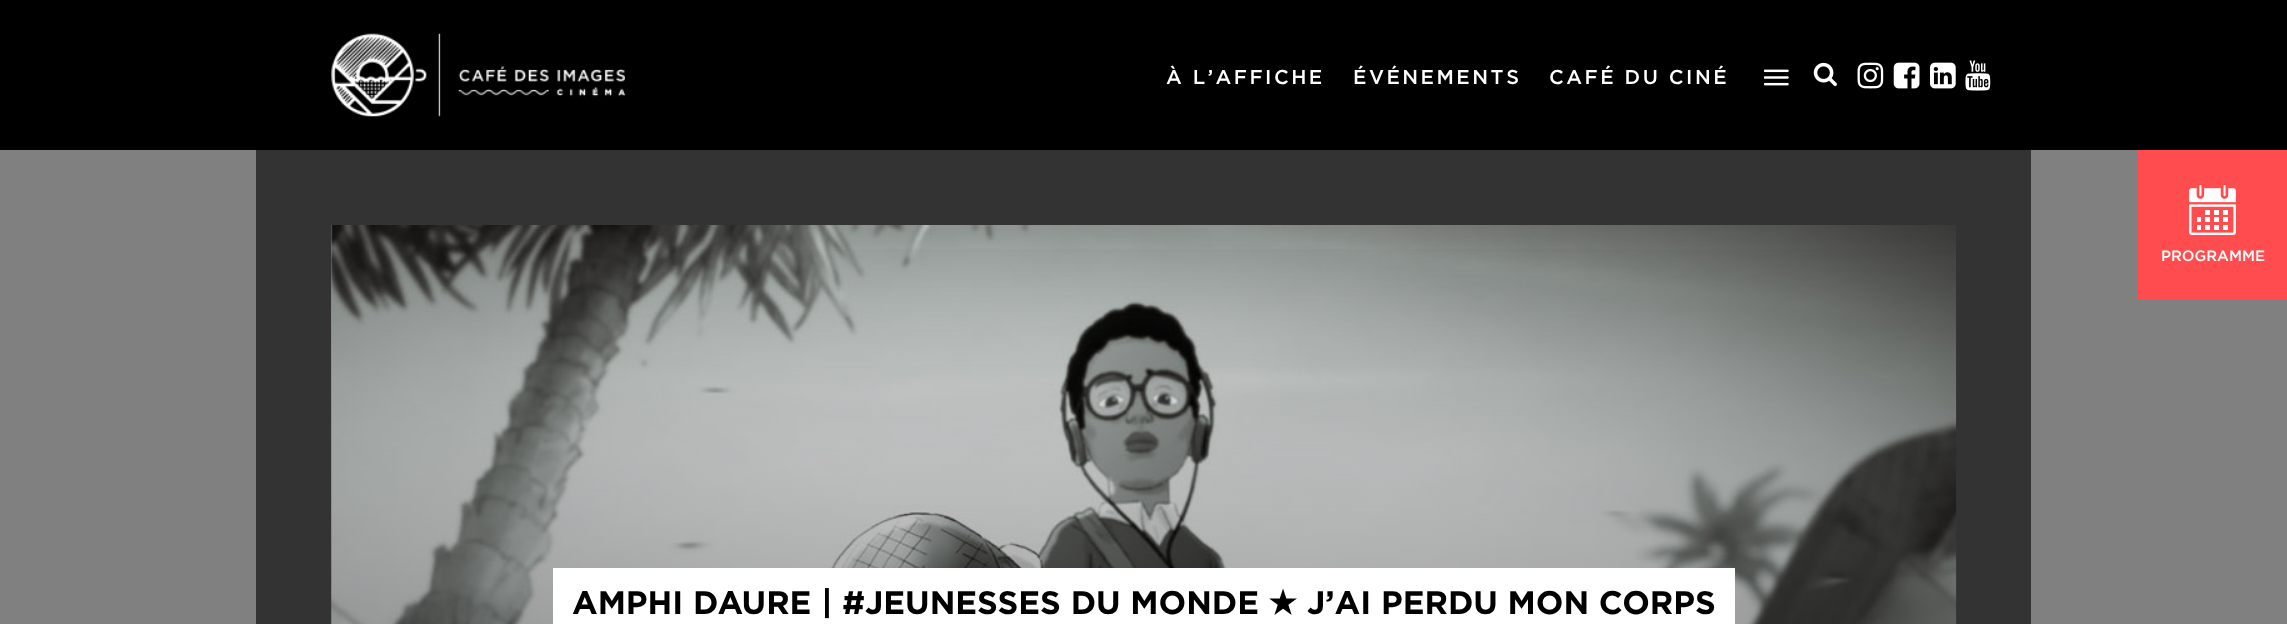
async function draw(canvas) {
	canvas.width = 2287;
	canvas.height = 624;
	const c = canvas.getContext('2d');
	c.miterLimit = 4;
	c.fontKerning = 'normal';
	async function loadImage(src) {
		const img = new Image();
		img.src = src;
		await img.decode();
		return img;
	}
	let gradient;

	c.fillStyle = '#808080';
	c.fillRect(0, 0, 2287, 624);
	c.fillStyle = '#000';
	c.fillRect(0, 0, 2287, 150);
	c.drawImage(await loadImage('img1.png'), 331, 33, 294, 84);
	c.letterSpacing = '2.5px';
	c.font = '500 20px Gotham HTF';
	c.fillStyle = '#fff';
	for (const [text, x, y] of [
		['À L’AFFICHE', 1166, 84],
		['ÉVÉNEMENTS', 1353, 84],
		['CAFÉ DU CINÉ', 1549, 84],
	]) {
		c.fillText(text, x, y);
	}
	c.drawImage(await loadImage('img2.png'), 1764, 69, 25, 17);
	c.drawImage(await loadImage('img3.png'), 1813, 62, 24, 25);
	c.drawImage(await loadImage('img4.png'), 1857, 62, 27, 27);
	c.drawImage(await loadImage('img5.png'), 1893, 62, 27, 27);
	c.drawImage(await loadImage('img6.png'), 1930, 62, 26, 27);
	c.drawImage(await loadImage('img7.png'), 1965, 60, 26, 31);
	c.fillStyle = '#ff4c4f';
	c.fillRect(2138, 150, 149, 150);
	c.drawImage(await loadImage('img8.png'), 2189, 185, 47, 50);
	c.letterSpacing = '0px';
	c.font = '500 15px Gotham HTF';
	c.fillStyle = '#fff';
	c.fillText('PROGRAMME', 2161, 261);
	c.fillStyle = '#333';
	c.fillRect(256, 150, 1775, 474);
	c.fillStyle = '#919492';
	c.fillRect(331, 225, 1, 399);
	c.drawImage(await loadImage('img9.png'), 331, 225, 1626, 399);
	gradient = c.createLinearGradient(1144, 225, 1144, 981);
	gradient.addColorStop(0, '#00000000');
	gradient.addColorStop(0.9, '#00000099');
	gradient.addColorStop(1, '#000000cc');
	c.fillStyle = gradient;
	c.fillRect(331, 249, 1625, 375);
	c.fillStyle = '#fff';
	c.fillRect(553, 568, 1182, 56);
	c.font = 'bold 32.5px Gotham HTF';
	c.fillStyle = '#000';
	c.fillText('AMPHI DAURE | #JEUNESSES DU MONDE', 572, 614);
	c.font = 'bold 32.5px DejaVu Sans';
	c.fillText('★', 1268, 614);
	c.font = 'bold 32.5px Gotham HTF';
	c.fillText('J’AI PERDU MON CORPS', 1307, 614);
}

draw(document.querySelector('canvas'));
